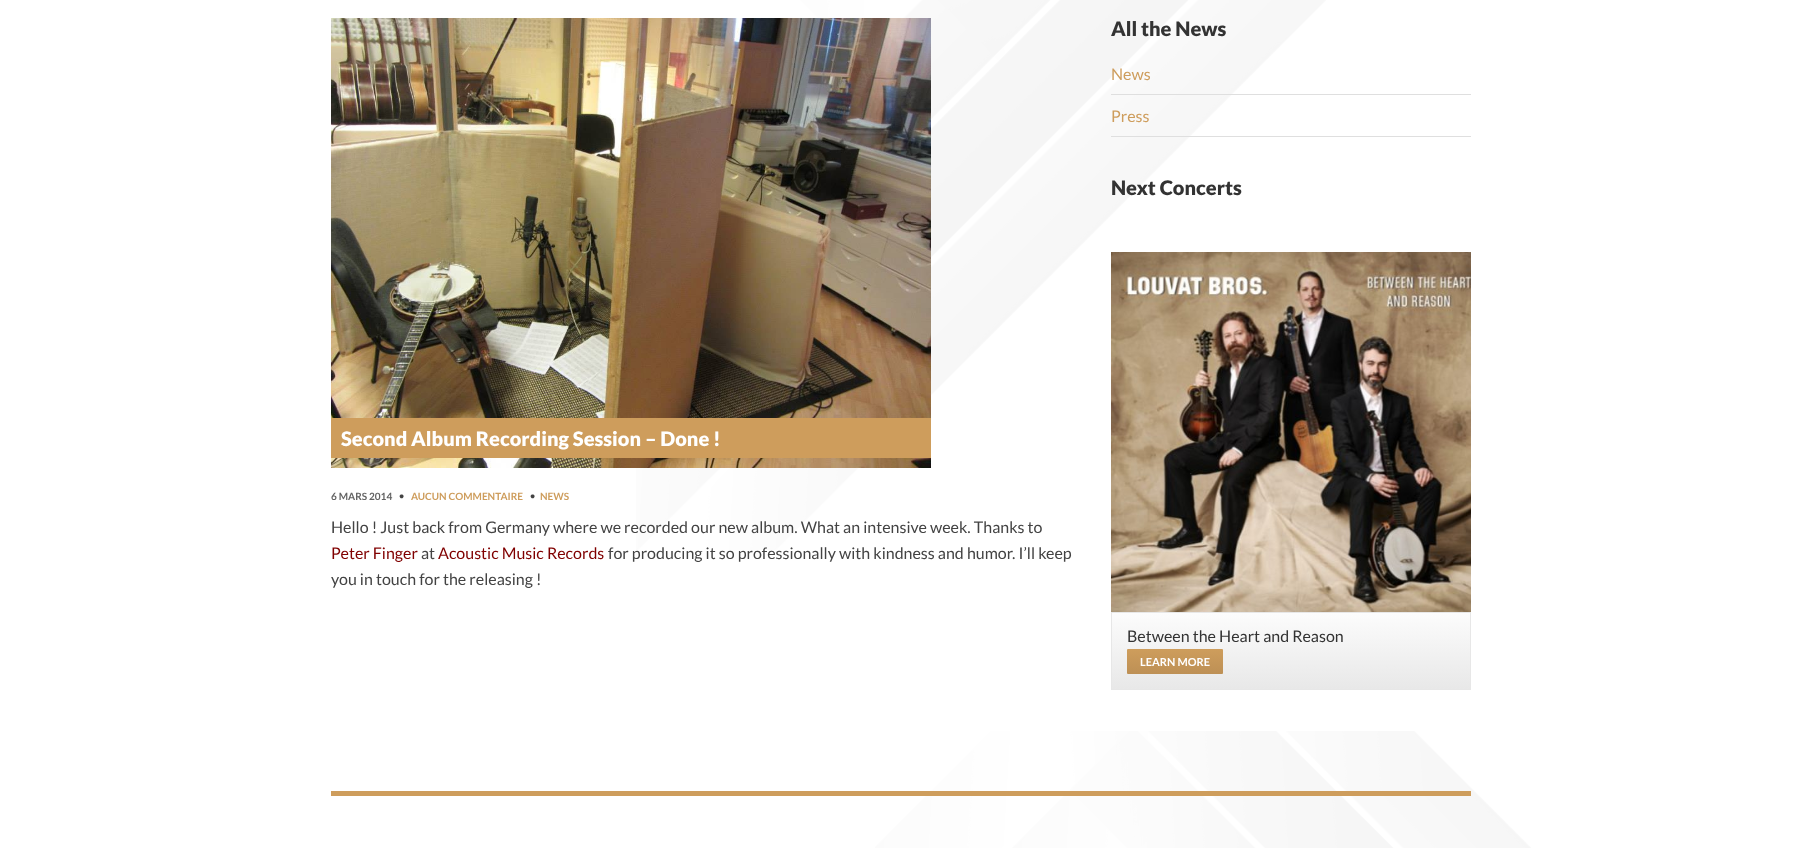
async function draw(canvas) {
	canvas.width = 1802;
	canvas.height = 848;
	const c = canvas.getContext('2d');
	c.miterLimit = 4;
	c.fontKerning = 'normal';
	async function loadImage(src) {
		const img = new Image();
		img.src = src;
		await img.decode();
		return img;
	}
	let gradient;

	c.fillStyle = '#fff';
	c.fillRect(0, 0, 1802, 848);
	c.drawImage(await loadImage('img1.png'), 636, 0, 690, 550);
	c.drawImage(await loadImage('img2.png'), 331, 18, 600, 450);
	c.fillStyle = '#ce9d5c';
	c.fillRect(331, 418, 600, 40);
	c.font = '900 20px Lato';
	c.fillStyle = '#fff';
	c.fillText('Second Album Recording Session – Done !', 341, 446);
	c.font = 'bold 10px Lato';
	c.fillStyle = '#626262';
	c.fillText('6 MARS 2014', 331, 500);
	c.font = 'bold 9px Lato';
	c.fillStyle = '#434343';
	c.fillText('•', 399, 499);
	c.font = 'bold 10px Lato';
	c.fillStyle = '#ce9d5c';
	c.fillText('AUCUN COMMENTAIRE', 411, 500);
	c.font = 'bold 9px Lato';
	c.fillStyle = '#434343';
	c.fillText('•', 530, 499);
	c.font = 'bold 10px Lato';
	c.fillStyle = '#ce9d5c';
	c.fillText('NEWS', 540, 500);
	c.font = '16px Lato';
	c.fillStyle = '#434343';
	c.fillText('Hello ! Just back from Germany where we recorded our new album. What an intensive week. Thanks to', 331, 533);
	c.fillStyle = '#800000';
	c.fillText('Peter Finger', 331, 559);
	c.fillStyle = '#434343';
	c.fillText('at', 421, 559);
	c.fillStyle = '#800000';
	c.fillText('Acoustic Music Records', 438, 559);
	c.fillStyle = '#434343';
	c.fillText('for producing it so professionally with kindness and humor. I’ll keep', 608, 559);
	c.fillText('you in touch for the releasing !', 331, 585);
	c.font = '900 20px Lato';
	c.fillStyle = '#333';
	c.fillText('All the News', 1111, 36);
	c.fillStyle = '#dfdfdf';
	c.fillRect(1111, 94, 360, 1);
	c.font = '16px Lato';
	c.fillStyle = '#ce9d5c';
	c.fillText('News', 1111, 80);
	c.fillStyle = '#dfdfdf';
	c.fillRect(1111, 136, 360, 1);
	c.fillStyle = '#ce9d5c';
	c.fillText('Press', 1111, 122);
	c.font = '900 20px Lato';
	c.fillStyle = '#333';
	c.fillText('Next Concerts', 1111, 195);
	c.drawImage(await loadImage('img3.png'), 1111, 252, 360, 360);
	gradient = c.createLinearGradient(1291, 613, 1291, 689);
	gradient.addColorStop(0, '#fcfcfc');
	gradient.addColorStop(1, '#e8e8e8');
	c.fillStyle = gradient;
	c.fillRect(1112, 613, 358, 76);
	c.strokeStyle = '#e7e7e7';
	c.strokeRect(1111.5, 612.5, 359, 77);
	c.font = '16px Lato';
	c.fillStyle = '#333';
	c.fillText('Between the Heart and Reason', 1127, 642);
	gradient = c.createLinearGradient(1175, 649, 1175, 674);
	gradient.addColorStop(0, '#ce9d5c');
	gradient.addColorStop(1, '#bd9055');
	c.fillStyle = gradient;
	c.beginPath();
	c.roundRect(1127, 649, 96, 25, 1);
	c.fill();
	c.font = 'bold 11px Lato';
	c.fillStyle = '#fff';
	c.fillText('LEARN MORE', 1140, 666);
	c.drawImage(await loadImage('img4.png'), 875, 731, 656, 117);
	c.fillStyle = '#ce9d5c';
	c.fillRect(331, 791, 1140, 5);
}

draw(document.querySelector('canvas'));
